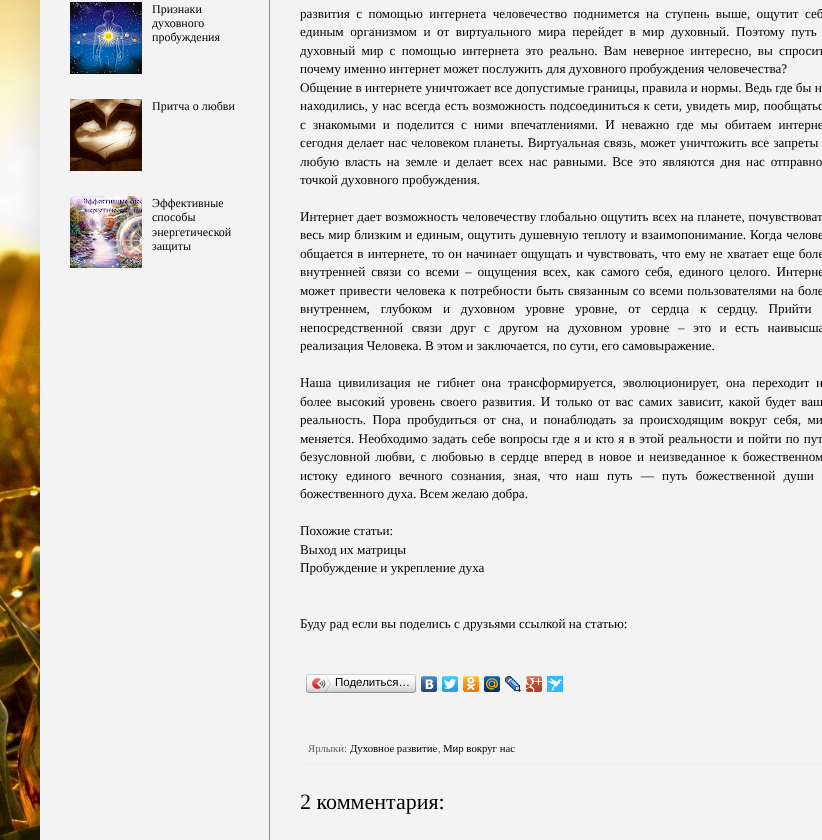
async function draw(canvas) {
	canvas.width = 822;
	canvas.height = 840;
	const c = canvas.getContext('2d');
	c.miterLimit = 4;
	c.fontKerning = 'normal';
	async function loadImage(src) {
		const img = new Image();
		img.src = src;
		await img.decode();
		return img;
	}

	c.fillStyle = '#fff';
	c.fillRect(0, 0, 822, 840);
	c.drawImage(await loadImage('img1.png'), 0, 0, 40, 840);
	c.fillStyle = '#00000026';
	c.filter = 'blur(20px)';
	c.beginPath();
	c.rect(40, -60, 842, 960);
	c.fill();
	c.filter = 'none';
	c.fillStyle = '#f3f3f3';
	c.fillRect(40, 0, 782, 840);
	c.fillStyle = '#888';
	c.fillRect(269, 0, 1, 840);
	c.drawImage(await loadImage('img2.png'), 70, 2, 72, 72);
	c.font = '12px Liberation Serif';
	c.fillStyle = '#000';
	for (const [text, x, y] of [
		['Признаки', 152, 13],
		['духовного', 152, 27],
		['пробуждения', 152, 41],
	]) {
		c.fillText(text, x, y);
	}
	c.drawImage(await loadImage('img3.png'), 70, 99, 72, 72);
	c.fillText('Притча о любви', 152, 110);
	c.drawImage(await loadImage('img4.png'), 70, 196, 72, 72);
	for (const [text, x, y] of [
		['Эффективные', 152, 207],
		['способы', 152, 221],
		['энергетической', 152, 236],
		['защиты', 152, 250],
	]) {
		c.fillText(text, x, y);
	}
	c.wordSpacing = '3.1px';
	c.font = '13.2px Liberation Serif';
	c.fillText('развития с помощью интернета человечество поднимется на ступень выше, ощутит себ', 300, 18);
	c.wordSpacing = '3.25px';
	c.fillText('единым организмом и от виртуального мира перейдет в мир духовный. Поэтому путь', 300, 36);
	c.wordSpacing = '2.9px';
	c.fillText('духовный мир с помощью интернета это реально. Вам неверное интересно, вы спросит', 300, 55);
	c.wordSpacing = '0px';
	c.fillText('почему именно интернет может послужить для духовного пробуждения человечества?', 300, 73);
	c.fillText('Общение в интернете уничтожает все допустимые границы, правила и нормы. Ведь где бы н', 300, 92);
	c.wordSpacing = '0.75px';
	c.fillText('находились, у нас всегда есть возможность подсоединиться к сети, увидеть мир, пообщатьс', 300, 110);
	c.wordSpacing = '3.75px';
	c.fillText('с знакомыми и поделится', 300, 129);
	c.fillText('с ними впечатлениями. И неважно где мы обитаем интерне', 461, 129);
	c.wordSpacing = '0.9px';
	c.fillText('сегодня делает нас человеком планеты. Виртуальная связь, может уничтожить все запреты', 300, 147);
	c.wordSpacing = '2.5px';
	c.fillText('любую власть на земле и делает всех нас равными. Все это являются дня нас отправно', 300, 166);
	c.wordSpacing = '0px';
	c.fillText('точкой духовного пробуждения.', 300, 184);
	c.wordSpacing = '0.5px';
	c.fillText('Интернет дает возможность человечеству глобально ощутить всех на планете, почувствоват', 300, 221);
	c.wordSpacing = '0.75px';
	c.fillText('весь мир близким и единым, ощутить душевную теплоту и взаимопонимание. Когда челове', 300, 239);
	c.wordSpacing = '0.9px';
	c.fillText('общается в интернете, то он начинает ощущать и чувствовать, что ему не хватает еще боле', 300, 258);
	c.wordSpacing = '2.6px';
	c.fillText('внутренней связи со всеми – ощущения всех, как самого себя, единого целого. Интерне', 300, 276);
	c.wordSpacing = '1.1px';
	c.fillText('может привести человека к потребности быть связанным со всеми пользователями на боле', 300, 295);
	c.wordSpacing = '7.5px';
	c.fillText('внутреннем, глубоком и духовном уровне уровне, от сердца к сердцу. Прийти', 300, 313);
	c.wordSpacing = '5.25px';
	c.fillText('непосредственной связи друг с другом на духовном уровне – это и есть наивысша', 300, 332);
	c.wordSpacing = '0px';
	c.fillText('реализация Человека. В этом и заключается, по сути, его самовыражение.', 300, 350);
	c.wordSpacing = '3.5px';
	c.fillText('Наша цивилизация не гибнет она трансформируется, эволюционирует, она переходит н', 300, 387);
	c.wordSpacing = '2.1px';
	c.fillText('более высокий уровень своего развития. И только от вас самих зависит, какой будет ваш', 300, 406);
	c.wordSpacing = '3px';
	c.fillText('реальность. Пора пробудиться от сна, и понаблюдать за происходящим вокруг себя, ми', 300, 424);
	c.wordSpacing = '1px';
	c.fillText('меняется. Необходимо задать себе вопросы где я и кто я в этой реальности и пойти по пут', 300, 443);
	c.wordSpacing = '2.1px';
	c.fillText('безусловной любви, с любовью в сердце вперед в новое и неизведанное к божественном', 300, 461);
	c.wordSpacing = '4.9px';
	c.fillText('истоку единого вечного сознания, зная, что наш путь — путь божественной души', 300, 480);
	c.wordSpacing = '0px';
	for (const [text, x, y] of [
		['божественного духа. Всем желаю добра.', 300, 498],
		['Похожие статьи:', 300, 535],
		['Выход их матрицы', 300, 554],
		['Пробуждение и укрепление духа', 300, 572],
		['Буду рад если вы поделись с друзьями ссылкой на статью:', 300, 628],
	]) {
		c.fillText(text, x, y);
	}
	c.drawImage(await loadImage('img5.png'), 309, 674, 104, 19);
	c.drawImage(await loadImage('img6.png'), 306, 674, 3, 19);
	c.drawImage(await loadImage('img7.png'), 312, 675, 20, 17);
	c.font = '11.5px Liberation Sans';
	c.fillText('Поделиться…', 335, 686);
	c.drawImage(await loadImage('img8.png'), 413, 674, 3, 19);
	c.drawImage(await loadImage('img9.png'), 421, 676, 16, 16);
	c.drawImage(await loadImage('img10.png'), 442, 676, 16, 16);
	c.drawImage(await loadImage('img11.png'), 463, 676, 16, 16);
	c.drawImage(await loadImage('img12.png'), 484, 676, 16, 16);
	c.drawImage(await loadImage('img13.png'), 505, 676, 16, 16);
	c.drawImage(await loadImage('img14.png'), 526, 676, 16, 16);
	c.drawImage(await loadImage('img15.png'), 547, 676, 16, 16);
	c.fillStyle = '#eee';
	c.fillRect(298, 763, 524, 1);
	c.font = '10.75px Liberation Serif';
	c.fillStyle = '#666';
	c.fillText('Ярлыки:', 308, 752);
	c.fillStyle = '#000';
	c.fillText('Духовное развитие', 350, 752);
	c.fillStyle = '#666';
	c.fillText(',', 438, 752);
	c.fillStyle = '#000';
	c.fillText('Мир вокруг нас', 443, 752);
	c.font = '22px Liberation Serif';
	c.fillText('2 комментария:', 300, 809);
}

draw(document.querySelector('canvas'));
